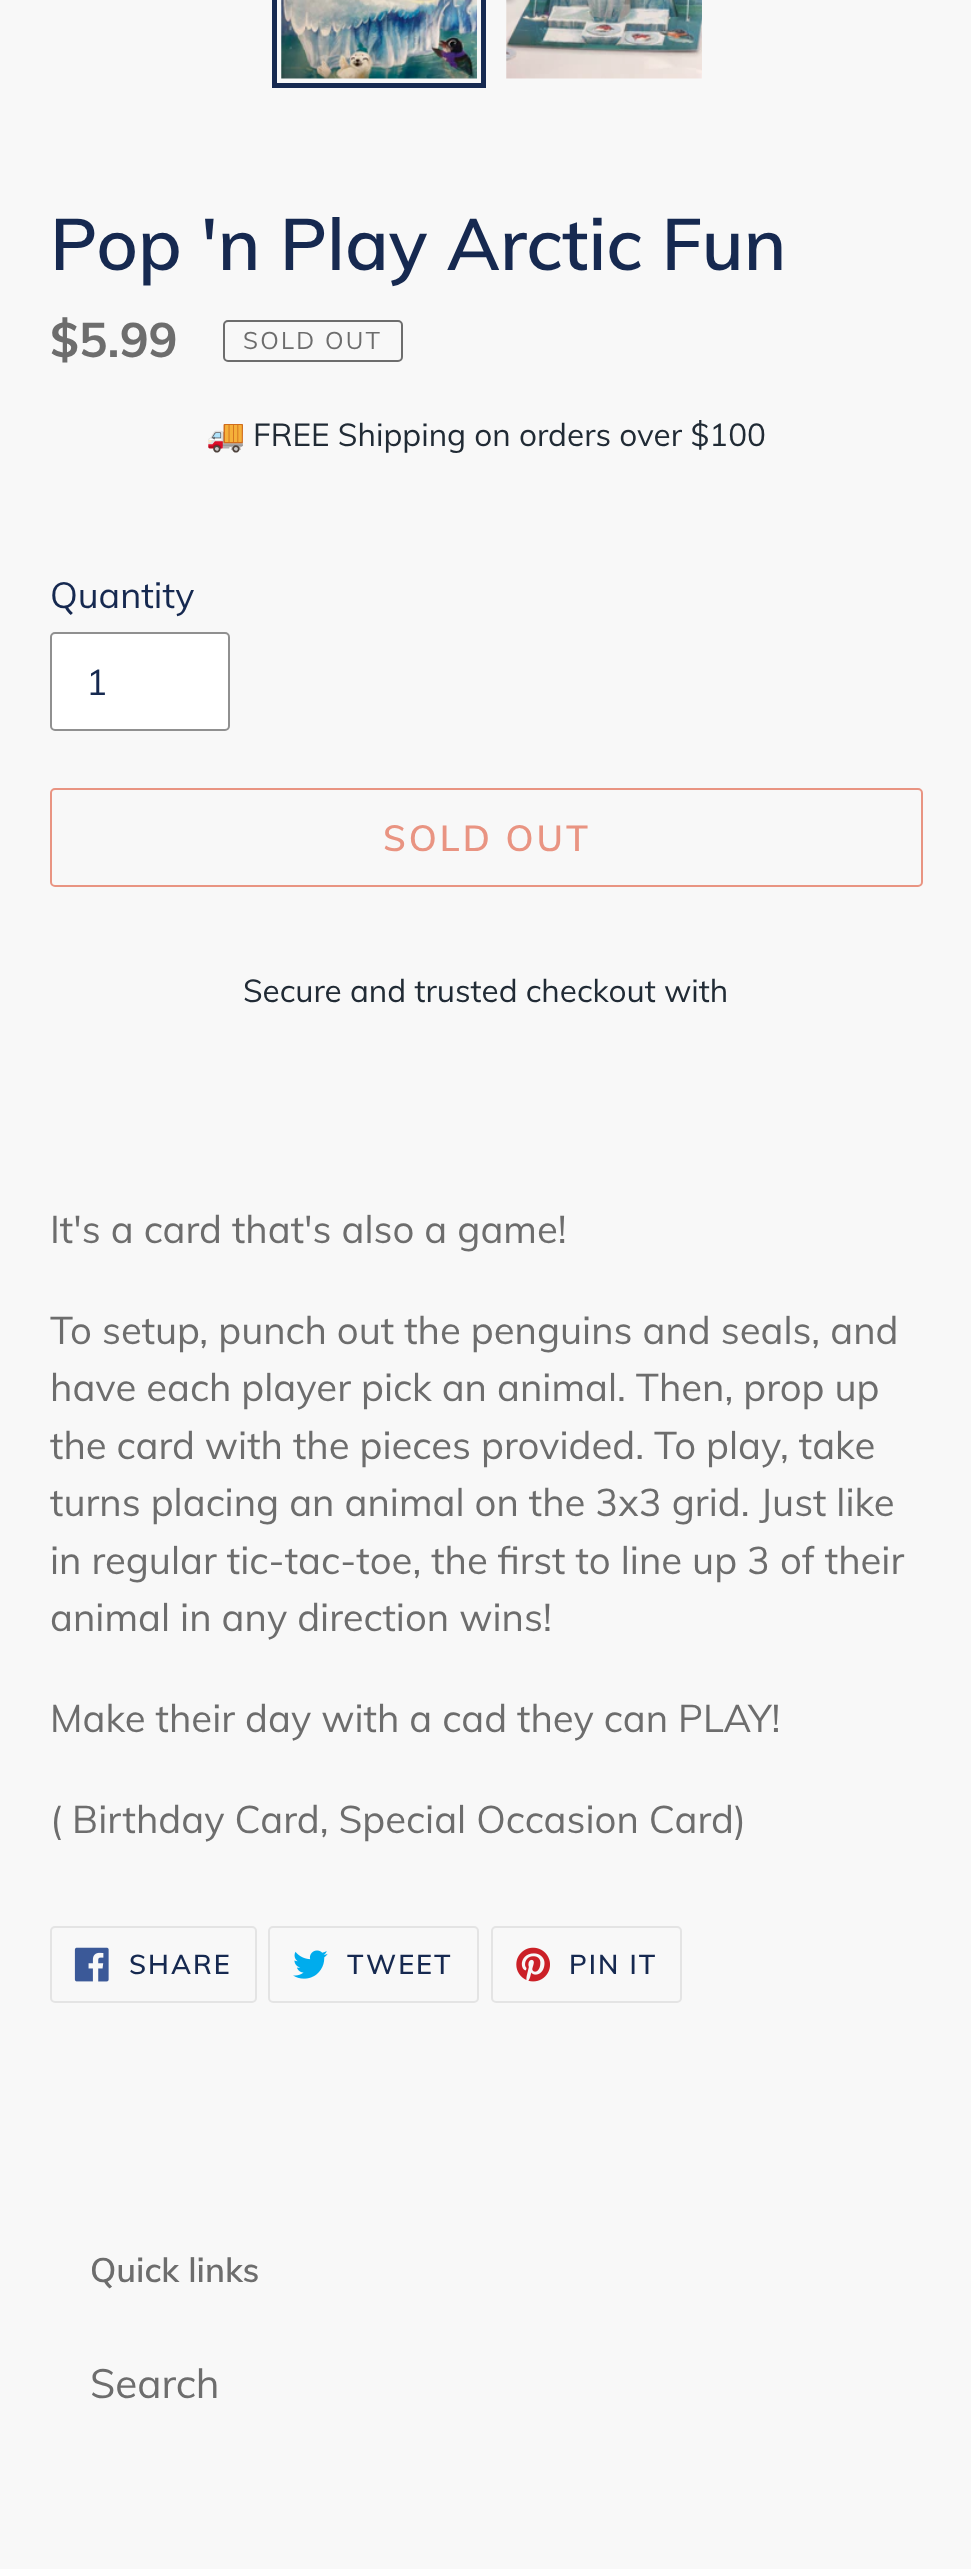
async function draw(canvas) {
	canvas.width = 971;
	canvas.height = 2569;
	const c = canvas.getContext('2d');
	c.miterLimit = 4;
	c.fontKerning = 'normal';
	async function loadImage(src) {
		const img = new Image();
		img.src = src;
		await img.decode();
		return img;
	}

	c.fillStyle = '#f8f8f8';
	c.fillRect(0, 0, 971, 2569);
	c.strokeStyle = '#162950';
	c.lineWidth = 5;
	c.strokeRect(274.5, -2.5, 209, 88);
	c.drawImage(await loadImage('img1.png'), 281, 0, 196, 79);
	c.drawImage(await loadImage('img2.png'), 506, 0, 196, 79);
	c.font = '600 72px Muli';
	c.fillStyle = '#162950';
	c.fillText('Pop \'n Play Arctic Fun', 50, 270);
	c.font = 'bold 48px Muli';
	c.fillStyle = '#6d6d6d';
	c.fillText('$5.99', 50, 357);
	c.beginPath();
	c.roundRect(224, 321, 178, 40, 4);
	c.strokeStyle = '#6d6d6d';
	c.lineWidth = 2;
	c.stroke();
	c.letterSpacing = '2.25px';
	c.font = '24px Muli';
	c.fillText('SOLD OUT', 243, 349);
	c.letterSpacing = '0px';
	c.font = '31.5px Noto Color Emoji';
	c.fillStyle = '#212b35';
	c.fillText('🚚', 206, 446);
	c.font = '31.5px Muli';
	c.fillText('FREE Shipping on orders over $100', 253, 446);
	c.font = '36px Muli';
	c.fillStyle = '#162950';
	c.fillText('Quantity', 50, 608);
	c.fillStyle = '#fff';
	c.beginPath();
	c.roundRect(51, 633, 178, 97, 4);
	c.fill();
	c.strokeStyle = '#909090';
	c.stroke();
	c.fillStyle = '#162950';
	c.fillText('1', 86, 695);
	c.beginPath();
	c.roundRect(51, 789, 871, 97, 4);
	c.strokeStyle = '#e99482';
	c.stroke();
	c.letterSpacing = '3px';
	c.font = '600 36px Muli';
	c.fillStyle = '#e99482';
	c.fillText('SOLD OUT', 383, 851);
	c.letterSpacing = '0px';
	c.font = '31.5px Muli';
	c.fillStyle = '#212b35';
	c.fillText('Secure and trusted checkout with', 243, 1002);
	c.font = '38.25px Muli';
	c.fillStyle = '#6d6d6d';
	for (const [text, x, y] of [
		['It\'s a card that\'s also a game!', 50, 1243],
		['To setup, punch out the penguins and seals, and', 50, 1344],
		['have each player pick an animal. Then, prop up', 50, 1401],
		['the card with the pieces provided. To play, take', 50, 1459],
		['turns placing an animal on the 3x3 grid. Just like', 50, 1516],
		['in regular tic-tac-toe, the first to line up 3 of their', 50, 1574],
		['animal in any direction wins!', 50, 1631],
		['Make their day with a cad they can PLAY!', 50, 1732],
		['( Birthday Card, Special Occasion Card)', 50, 1833],
	]) {
		c.fillText(text, x, y);
	}
	c.beginPath();
	c.roundRect(51, 1927, 205, 75, 4);
	c.strokeStyle = '#e4e4e4';
	c.stroke();
	c.drawImage(await loadImage('img3.png'), 74, 1947, 35, 35);
	c.letterSpacing = '2px';
	c.font = '600 27px Muli';
	c.fillStyle = '#162950';
	c.fillText('SHARE', 129, 1974);
	c.beginPath();
	c.roundRect(269, 1927, 209, 75, 4);
	c.stroke();
	c.drawImage(await loadImage('img4.png'), 293, 1950, 35, 29);
	c.fillText('TWEET', 347, 1974);
	c.beginPath();
	c.roundRect(492, 1927, 189, 75, 4);
	c.stroke();
	c.drawImage(await loadImage('img5.png'), 516, 1947, 34, 35);
	c.fillText('PIN IT', 569, 1974);
	c.letterSpacing = '0px';
	c.font = '600 33.75px Muli';
	c.fillStyle = '#6d6d6d';
	c.fillText('Quick links', 90, 2282);
	c.font = '40.5px Muli';
	c.fillText('Search', 90, 2398);
}

draw(document.querySelector('canvas'));
